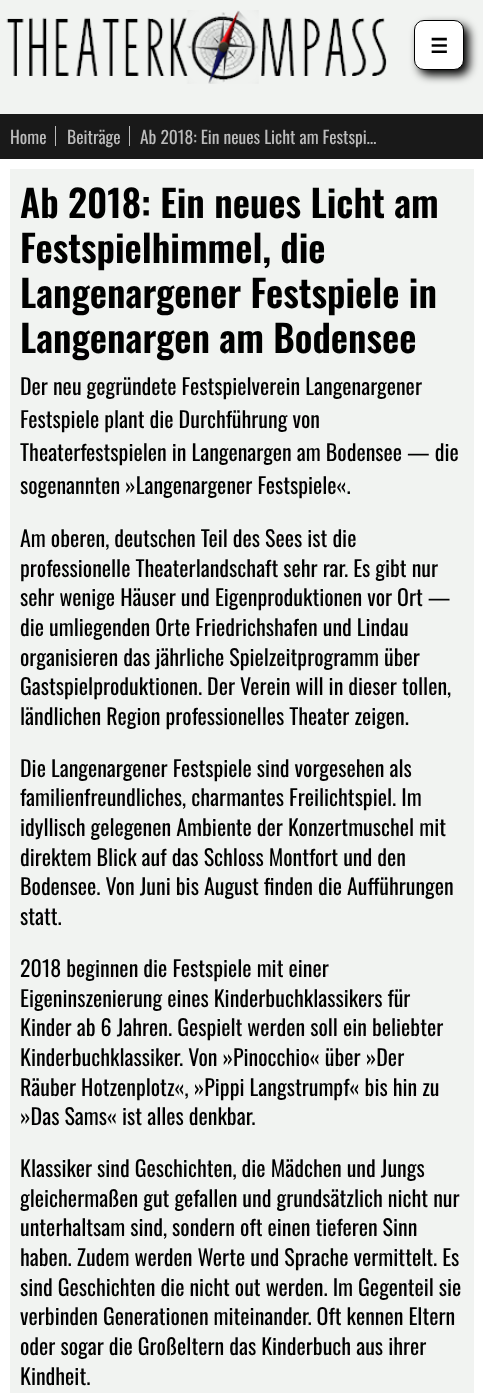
async function draw(canvas) {
	canvas.width = 483;
	canvas.height = 1393;
	const c = canvas.getContext('2d');
	c.miterLimit = 4;
	c.fontKerning = 'normal';
	async function loadImage(src) {
		const img = new Image();
		img.src = src;
		await img.decode();
		return img;
	}

	c.fillStyle = '#fff';
	c.fillRect(0, 0, 483, 1393);
	c.fillStyle = '#f1f3f1';
	c.fillRect(0, 0, 483, 114);
	c.drawImage(await loadImage('img1.png'), 6, 10, 381, 74);
	c.fillStyle = '#000';
	c.filter = 'blur(5px)';
	c.beginPath();
	c.roundRect(419, 25, 50, 50, 10);
	c.fill();
	c.filter = 'none';
	c.fillStyle = '#fff';
	c.beginPath();
	c.roundRect(414.5, 20.5, 49, 49, 9.5);
	c.fill();
	c.strokeStyle = '#000';
	c.stroke();
	c.font = 'bold 20px DejaVu Sans';
	c.fillStyle = '#000';
	c.fillText('☰', 430, 53);
	c.fillStyle = '#191919';
	c.fillRect(0, 114, 483, 45);
	c.font = '17.5px Oswald';
	c.fillStyle = '#bbb';
	c.fillText('Home', 10, 144);
	c.fillRect(55, 126, 1, 20);
	c.fillText('Beiträge', 67, 144);
	c.fillRect(129, 126, 1, 20);
	c.fillText('Ab 2018: Ein neues Licht am Festspi…', 140, 144);
	c.fillStyle = '#f1f3f1';
	c.fillRect(10, 169, 464, 1224);
	c.font = '600 37.5px Oswald';
	c.fillStyle = '#000';
	for (const [text, x, y] of [
		['Ab 2018: Ein neues Licht am', 20, 218],
		['Festspielhimmel, die', 20, 263],
		['Langenargener Festspiele in', 20, 308],
		['Langenargen am Bodensee', 20, 353],
	]) {
		c.fillText(text, x, y);
	}
	c.font = '22px Oswald';
	for (const [text, x, y] of [
		['Der neu gegründete Festspielverein Langenargener', 20, 395],
		['Festspiele plant die Durchführung von', 20, 428],
		['Theaterfestspielen in Langenargen am Bodensee — die', 20, 461],
		['sogenannten »Langenargener Festspiele«.', 20, 494],
		['Am oberen, deutschen Teil des Sees ist die', 20, 547],
		['professionelle Theaterlandschaft sehr rar. Es gibt nur', 20, 577],
		['sehr wenige Häuser und Eigenproduktionen vor Ort —', 20, 606],
		['die umliegenden Orte Friedrichshafen und Lindau', 20, 636],
		['organisieren das jährliche Spielzeitprogramm über', 20, 666],
		['Gastspielproduktionen. Der Verein will in dieser tollen,', 20, 695],
		['ländlichen Region professionelles Theater zeigen.', 20, 725],
		['Die Langenargener Festspiele sind vorgesehen als', 20, 777],
		['familienfreundliches, charmantes Freilichtspiel. Im', 20, 806],
		['idyllisch gelegenen Ambiente der Konzertmuschel mit', 20, 836],
		['direktem Blick auf das Schloss Montfort und den', 20, 866],
		['Bodensee. Von Juni bis August finden die Aufführungen', 20, 895],
		['statt.', 20, 925],
		['2018 beginnen die Festspiele mit einer', 20, 977],
		['Eigeninszenierung eines Kinderbuchklassikers für', 20, 1007],
		['Kinder ab 6 Jahren. Gespielt werden soll ein beliebter', 20, 1036],
		['Kinderbuchklassiker. Von »Pinocchio« über »Der', 20, 1066],
		['Räuber Hotzenplotz«, »Pippi Langstrumpf« bis hin zu', 20, 1096],
		['»Das Sams« ist alles denkbar.', 20, 1125],
		['Klassiker sind Geschichten, die Mädchen und Jungs', 20, 1177],
		['gleichermaßen gut gefallen und grundsätzlich nicht nur', 20, 1207],
		['unterhaltsam sind, sondern oft einen tieferen Sinn', 20, 1236],
		['haben. Zudem werden Werte und Sprache vermittelt. Es', 20, 1266],
		['sind Geschichten die nicht out werden. Im Gegenteil sie', 20, 1296],
		['verbinden Generationen miteinander. Oft kennen Eltern', 20, 1325],
		['oder sogar die Großeltern das Kinderbuch aus ihrer', 20, 1355],
		['Kindheit.', 20, 1385],
	]) {
		c.fillText(text, x, y);
	}
}

draw(document.querySelector('canvas'));
